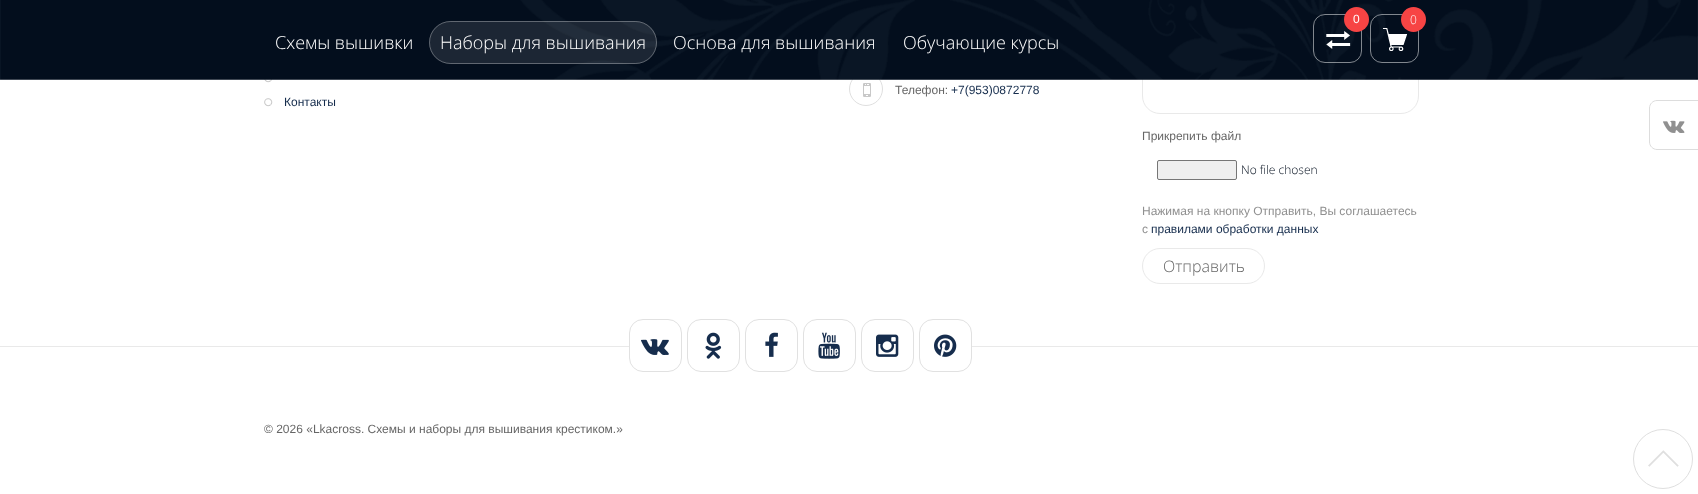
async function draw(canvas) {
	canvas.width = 1698;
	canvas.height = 494;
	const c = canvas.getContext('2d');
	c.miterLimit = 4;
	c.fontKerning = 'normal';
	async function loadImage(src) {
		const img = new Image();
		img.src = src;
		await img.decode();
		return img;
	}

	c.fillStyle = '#fff';
	c.fillRect(0, 0, 1698, 494);
	c.drawImage(await loadImage('img4.png'), 863, 83, 8, 14);
	c.beginPath();
	c.arc(866, 89, 16.5, 0, 2 * Math.PI);
	c.strokeStyle = '#dfdfdf';
	c.stroke();
	c.drawImage(await loadImage('img5.png'), 264, 79, 9, 4);
	c.beginPath();
	c.roundRect(1142.5, 54.5, 276, 59, 17.5);
	c.strokeStyle = '#e9e9e9';
	c.stroke();
	c.drawImage(await loadImage('img1.png'), 0, 0, 1698, 80);
	c.drawImage(await loadImage('img2.png'), 1326, 31, 25, 18);
	c.beginPath();
	c.roundRect(1313.5, 14.5, 48, 48, 11.5);
	c.strokeStyle = '#ffffff80';
	c.stroke();
	c.fillStyle = '#f74444';
	c.beginPath();
	c.arc(1356.5, 19.5, 12.5, 0, 2 * Math.PI);
	c.fill();
	c.font = '12px Liberation Sans';
	c.fillStyle = '#fff';
	c.fillText('0', 1353, 23);
	c.drawImage(await loadImage('img3.png'), 1383, 28, 24, 23);
	c.beginPath();
	c.roundRect(1370.5, 14.5, 48, 48, 11.5);
	c.stroke();
	c.fillStyle = '#f74444';
	c.beginPath();
	c.arc(1413.5, 19.5, 12.5, 0, 2 * Math.PI);
	c.fill();
	c.font = '300 12px Open Sans';
	c.fillStyle = '#fff';
	c.fillText('0', 1410, 24);
	c.font = '300 18px Open Sans';
	c.fillText('Схемы вышивки', 275, 49);
	c.fillStyle = '#ffffff1a';
	c.beginPath();
	c.roundRect(429, 21, 228, 43, 21.5);
	c.fill();
	c.beginPath();
	c.roundRect(429.5, 21.5, 227, 42, 21);
	c.strokeStyle = '#ffffff4d';
	c.stroke();
	c.fillStyle = '#fff';
	for (const [text, x, y] of [
		['Наборы для вышивания', 440, 49],
		['Основа для вышивания', 673, 49],
		['Обучающие курсы', 903, 49],
	]) {
		c.fillText(text, x, y);
	}
	c.fillStyle = '#ffffff0d';
	c.fillRect(0, 79, 1698, 1);
	c.font = '12px Liberation Sans';
	c.fillStyle = '#666';
	c.fillText('Телефон:', 895, 94);
	c.fillStyle = '#162d4d';
	c.fillText('+7(953)0872778', 951, 94);
	c.drawImage(await loadImage('img6.png'), 264, 98, 9, 9);
	c.fillText('Контакты', 284, 106);
	c.fillStyle = '#666';
	c.fillText('Прикрепить файл', 1142, 140);
	c.fillStyle = '#efefef';
	c.beginPath();
	c.roundRect(1157.5, 160.5, 79, 19, 1.5);
	c.fill();
	c.strokeStyle = '#767676';
	c.stroke();
	c.font = '300 12px Open Sans';
	c.fillStyle = '#030e1d';
	c.fillText('No file chosen', 1241, 174);
	c.font = '12px Liberation Sans';
	c.fillStyle = '#909090';
	c.fillText('Нажимая на кнопку Отправить, Вы соглашаетесь', 1142, 215);
	c.fillText('с', 1142, 233);
	c.fillStyle = '#162d4d';
	c.fillText('правилами обработки данных', 1151, 233);
	c.beginPath();
	c.roundRect(1142.5, 248.5, 122, 35, 17.5);
	c.strokeStyle = '#e9e9e9';
	c.stroke();
	c.font = '300 16px Open Sans';
	c.fillStyle = '#666';
	c.fillText('Отправить', 1163, 272);
	c.beginPath();
	c.moveTo(1657, 100.5);
	c.lineTo(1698.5, 100.5);
	c.lineTo(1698.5, 149.5);
	c.lineTo(1657, 149.5);
	c.bezierCurveTo(1653, 149.5, 1649.5, 146, 1649.5, 142);
	c.lineTo(1649.5, 108);
	c.bezierCurveTo(1649.5, 104, 1653, 100.5, 1657, 100.5);
	c.closePath();
	c.strokeStyle = '#ddd';
	c.stroke();
	c.drawImage(await loadImage('img7.png'), 1663, 120, 22, 13);
	c.fillStyle = '#e9e9e9';
	c.fillRect(0, 346, 1698, 1);
	c.fillStyle = '#fff';
	c.fillRect(629, 346, 343, 1);
	c.beginPath();
	c.roundRect(629.5, 319.5, 52, 52, 13.5);
	c.strokeStyle = '#e1e1e1';
	c.stroke();
	c.drawImage(await loadImage('img8.png'), 641, 339, 28, 16);
	c.beginPath();
	c.roundRect(687.5, 319.5, 52, 52, 13.5);
	c.stroke();
	c.drawImage(await loadImage('img9.png'), 705, 332, 17, 27);
	c.beginPath();
	c.roundRect(745.5, 319.5, 52, 52, 13.5);
	c.stroke();
	c.drawImage(await loadImage('img10.png'), 765, 332, 13, 25);
	c.beginPath();
	c.roundRect(803.5, 319.5, 52, 52, 13.5);
	c.stroke();
	c.drawImage(await loadImage('img11.png'), 818, 332, 22, 27);
	c.beginPath();
	c.roundRect(861.5, 319.5, 52, 52, 13.5);
	c.stroke();
	c.drawImage(await loadImage('img12.png'), 876, 334, 23, 23);
	c.beginPath();
	c.roundRect(919.5, 319.5, 52, 52, 13.5);
	c.stroke();
	c.drawImage(await loadImage('img13.png'), 934, 334, 23, 23);
	c.font = '12px Liberation Sans';
	c.fillStyle = '#666';
	c.fillText('© 2026 «Lkacross. Схемы и наборы для вышивания крестиком.»', 264, 433);
	c.drawImage(await loadImage('img14.png'), 1648, 450, 31, 17);
	c.beginPath();
	c.arc(1663, 459, 29.5, 0, 2 * Math.PI);
	c.strokeStyle = '#dfdfdf';
	c.stroke();
}

draw(document.querySelector('canvas'));
